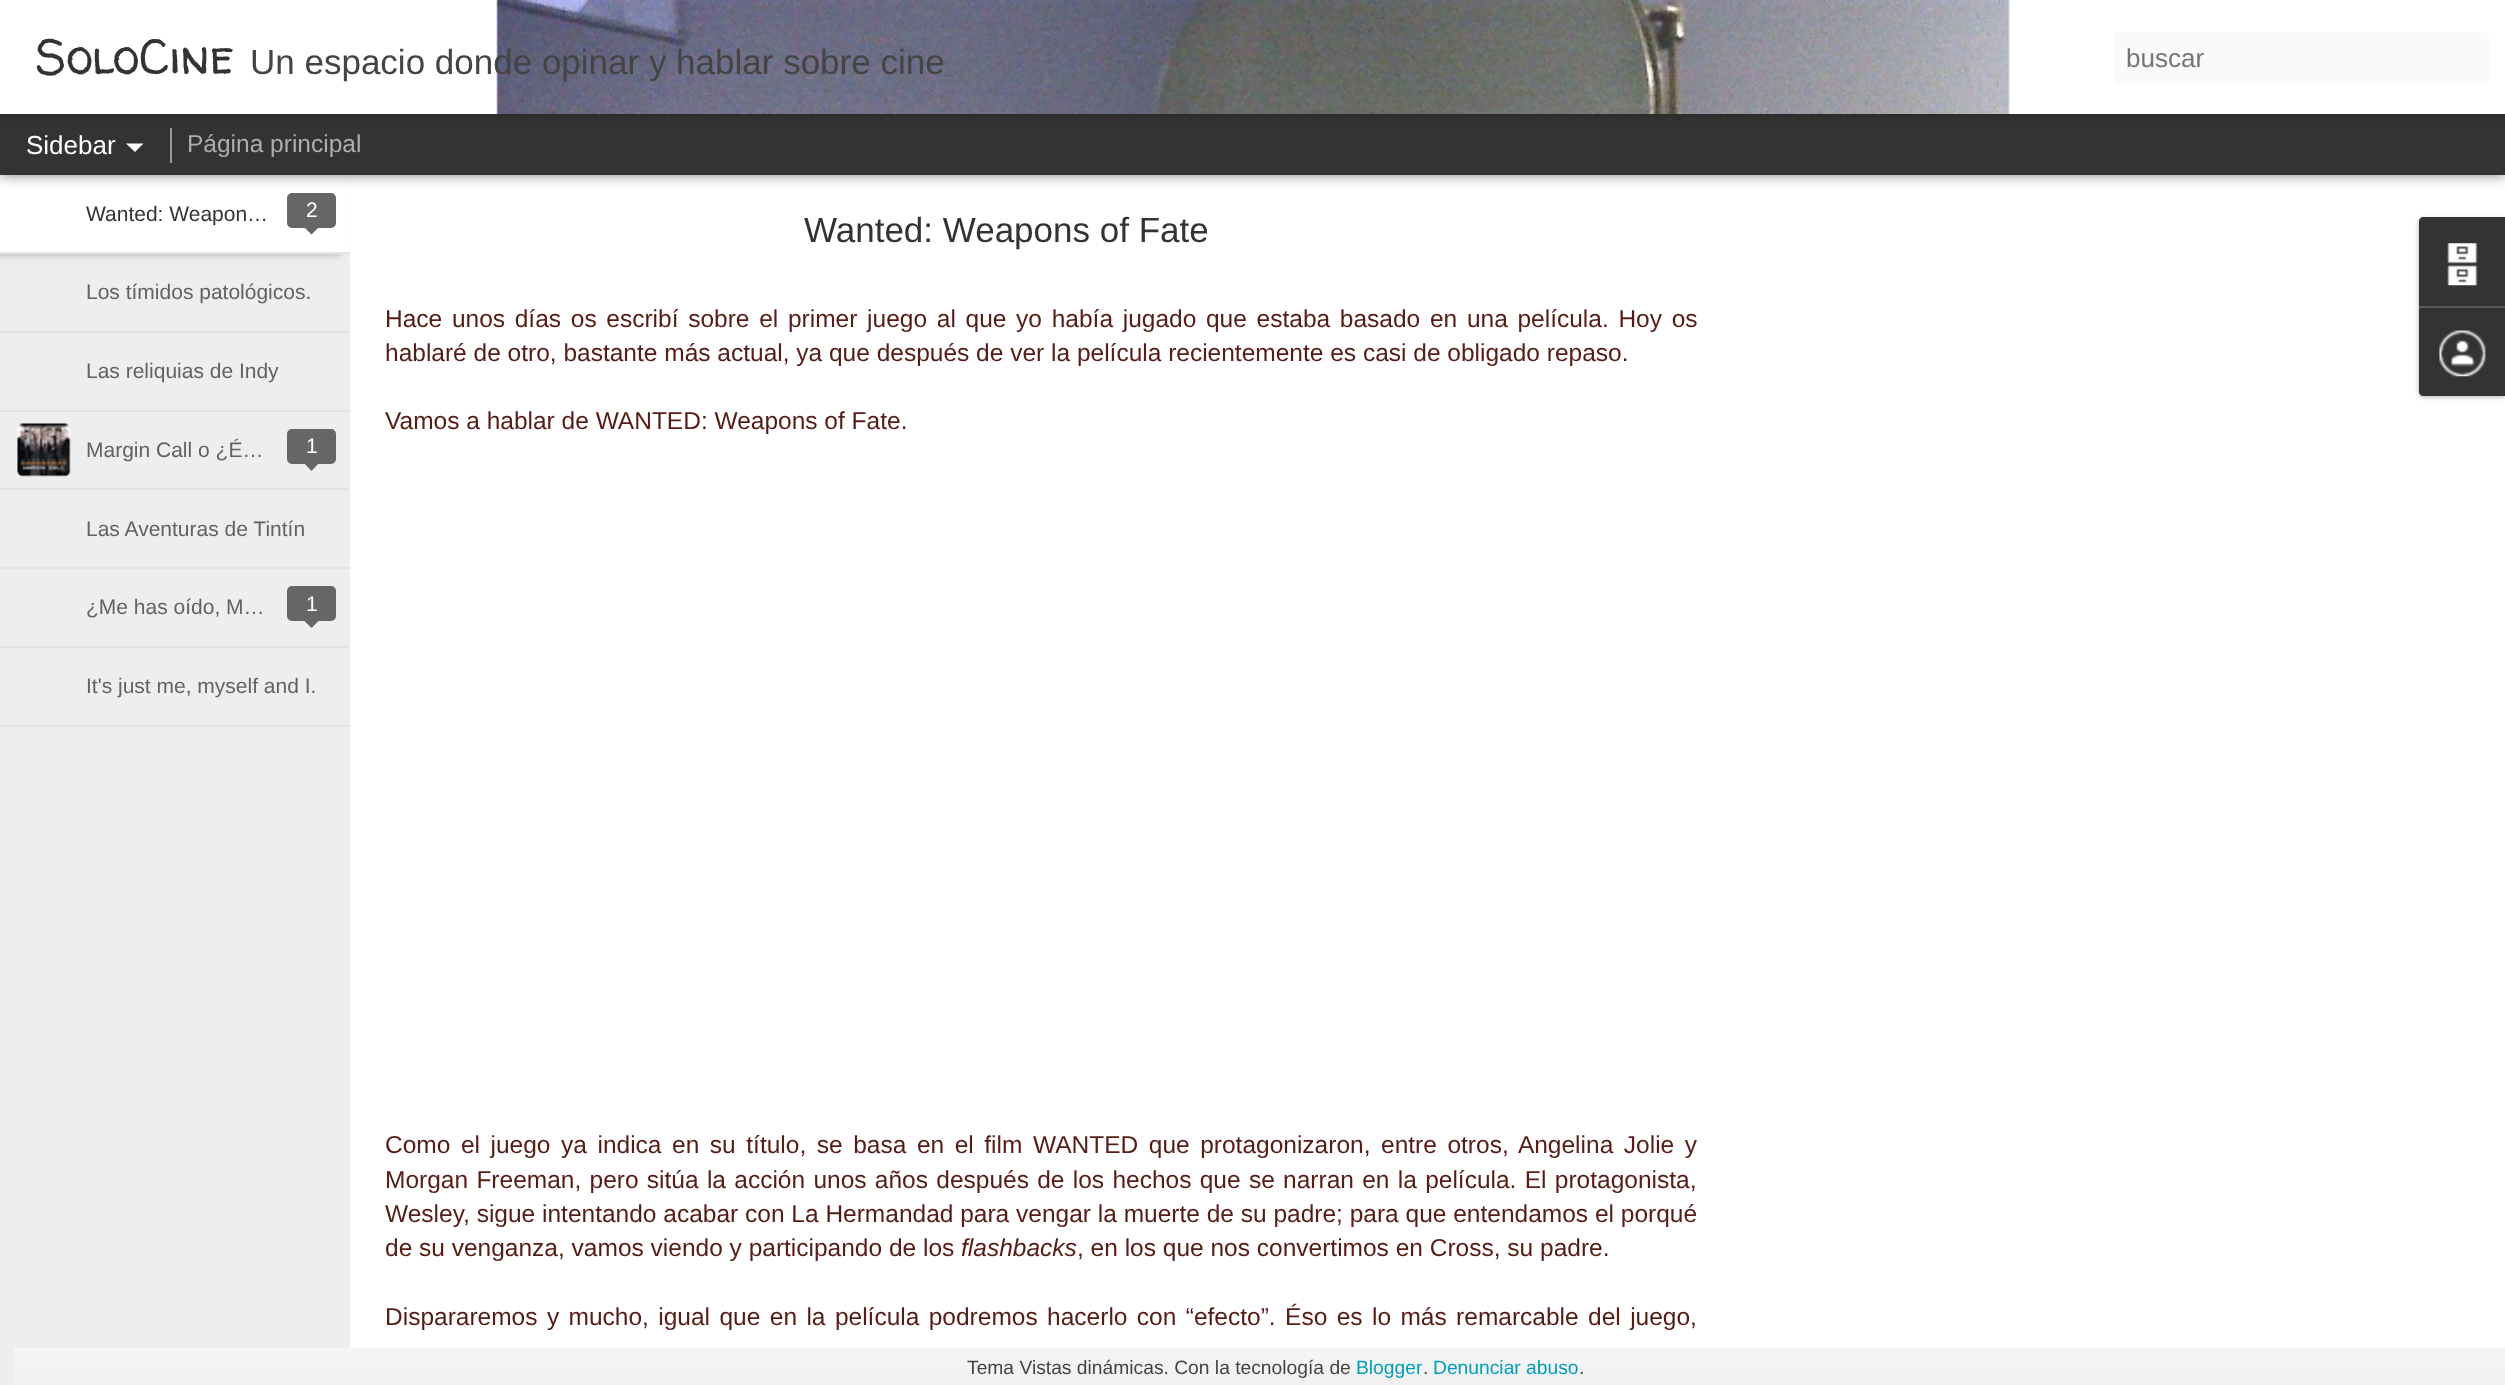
async function draw(canvas) {
	canvas.width = 2505;
	canvas.height = 1385;
	const c = canvas.getContext('2d');
	c.miterLimit = 4;
	c.fontKerning = 'normal';
	async function loadImage(src) {
		const img = new Image();
		img.src = src;
		await img.decode();
		return img;
	}
	let gradient;

	c.fillStyle = '#fff';
	c.fillRect(0, 0, 2505, 1385);
	c.fillStyle = '#eee';
	c.fillRect(0, 254, 350, 1131);
	c.fillStyle = '#aaa';
	c.filter = 'blur(4.5px)';
	c.beginPath();
	c.rect(-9, 175, 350, 79);
	c.fill();
	c.filter = 'none';
	c.fillStyle = '#fff';
	c.fillRect(0, 175, 349, 77);
	c.fillStyle = '#666';
	c.beginPath();
	c.roundRect(288, 194, 47, 33, 4);
	c.fill();
	c.strokeStyle = '#666';
	c.lineWidth = 2;
	c.stroke();
	c.fillStyle = '#00000080';
	c.filter = 'blur(7px)';
	c.beginPath();
	c.rect(0, 114, 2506, 61);
	c.fill();
	c.filter = 'none';
	c.fillStyle = '#333';
	c.fillRect(0, 114, 2505, 61);
	c.fillStyle = '#999';
	c.fillRect(170, 128, 2, 35);
	c.fillStyle = '#0000004d';
	c.filter = 'blur(4.5px)';
	c.beginPath();
	c.rect(0, 0, 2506, 114);
	c.fill();
	c.filter = 'none';
	c.fillStyle = '#fff';
	c.fillRect(0, 0, 2505, 114);
	c.drawImage(await loadImage('img1.png'), 496, 0, 1514, 114);
	c.font = '49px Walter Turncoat';
	c.fillStyle = '#333';
	c.fillText('SoloCine', 35, 74);
	c.font = '35px Liberation Sans';
	c.fillStyle = '#444';
	c.fillText('Un espacio donde opinar y hablar sobre cine', 250, 74);
	c.fillStyle = '#fafafa';
	c.beginPath();
	c.roundRect(2114, 32, 375, 52, 5);
	c.fill();
	c.font = '26px Liberation Sans';
	c.fillStyle = '#757575';
	c.fillText('buscar', 2126, 67);
	c.fillStyle = '#fff';
	c.fillText('Sidebar', 26, 154);
	c.beginPath();
	c.moveTo(126, 143.5);
	c.lineTo(143.5, 143.5);
	c.lineTo(135, 152);
	c.closePath();
	c.fill();
	c.font = '24.5px Liberation Sans';
	c.fillStyle = '#adadad';
	c.fillText('Página principal', 187, 152);
	c.fillStyle = '#e4e4e4';
	c.fillRect(0, 252, 350, 2);
	c.font = '21px Liberation Sans';
	c.fillStyle = '#333';
	c.fillText('Wanted: Weapon…', 86, 221);
	c.fillStyle = '#fff';
	c.fillText('2', 306, 217);
	c.fillStyle = '#666';
	c.beginPath();
	c.moveTo(303, 226);
	c.lineTo(320, 226);
	c.lineTo(311.5, 234.5);
	c.closePath();
	c.fill();
	c.fillStyle = '#e4e4e4';
	c.fillRect(0, 331, 350, 2);
	c.fillStyle = '#626262';
	c.fillText('Los tímidos patológicos.', 86, 299);
	c.fillStyle = '#e4e4e4';
	c.fillRect(0, 410, 350, 2);
	c.fillStyle = '#626262';
	c.fillText('Las reliquias de Indy', 86, 378);
	c.fillStyle = '#e4e4e4';
	c.fillRect(0, 488, 350, 2);
	c.drawImage(await loadImage('img2.png'), 17, 423, 54, 54);
	c.fillStyle = '#626262';
	c.fillText('Margin Call o ¿É…', 86, 457);
	c.fillStyle = '#666';
	c.beginPath();
	c.roundRect(288, 430, 47, 33, 4);
	c.fill();
	c.stroke();
	c.fillStyle = '#fff';
	c.fillText('1', 306, 453);
	c.fillStyle = '#666';
	c.beginPath();
	c.moveTo(303, 462);
	c.lineTo(320, 462);
	c.lineTo(311.5, 471);
	c.closePath();
	c.fill();
	c.fillStyle = '#e4e4e4';
	c.fillRect(0, 567, 350, 2);
	c.fillStyle = '#626262';
	c.fillText('Las Aventuras de Tintín', 86, 536);
	c.fillStyle = '#e4e4e4';
	c.fillRect(0, 646, 350, 2);
	c.fillStyle = '#626262';
	c.fillText('¿Me has oído, M…', 86, 614);
	c.fillStyle = '#666';
	c.beginPath();
	c.roundRect(288, 587, 47, 33, 4);
	c.fill();
	c.stroke();
	c.fillStyle = '#fff';
	c.fillText('1', 306, 611);
	c.fillStyle = '#666';
	c.beginPath();
	c.moveTo(303, 619.5);
	c.lineTo(320, 619.5);
	c.lineTo(311.5, 628);
	c.closePath();
	c.fill();
	c.fillStyle = '#e4e4e4';
	c.fillRect(0, 725, 350, 2);
	c.fillStyle = '#626262';
	c.fillText('It\'s just me, myself and I.', 86, 693);
	c.font = '35px Liberation Sans';
	c.fillStyle = '#333';
	c.fillText('Wanted: Weapons of Fate', 804, 242);
	c.wordSpacing = '2.9px';
	c.font = '24.5px Liberation Sans';
	c.fillStyle = '#561c15';
	c.fillText('Hace unos días os escribí sobre el primer juego al que yo había jugado que estaba basado en una película. Hoy os', 385, 327);
	c.wordSpacing = '0px';
	c.fillText('hablaré de otro, bastante más actual, ya que después de ver la película recientemente es casi de obligado repaso.', 385, 361);
	c.fillText('Vamos a hablar de WANTED: Weapons of Fate.', 385, 429);
	c.wordSpacing = '3.75px';
	c.fillText('Como el juego ya indica en su título, se basa en el film WANTED que protagonizaron, entre otros, Angelina Jolie y', 385, 1153);
	c.wordSpacing = '1.5px';
	c.fillText('Morgan Freeman, pero sitúa la acción unos años después de los hechos que se narran en la película. El protagonista,', 385, 1188);
	c.wordSpacing = '0px';
	c.fillText('Wesley, sigue intentando acabar con La Hermandad para vengar la muerte de su padre; para que entendamos el porqué', 385, 1222);
	c.fillText('de su venganza, vamos viendo y participando de los', 385, 1256);
	c.font = 'italic 24.5px Liberation Sans';
	c.fillText('flashbacks', 961, 1256);
	c.font = '24.5px Liberation Sans';
	c.fillText(', en los que nos convertimos en Cross, su padre.', 1077, 1256);
	c.wordSpacing = '2.6px';
	c.fillText('Dispararemos y mucho, igual que en la película podremos hacerlo con “efecto”. Éso es lo más remarcable del juego,', 385, 1325);
	c.fillStyle = '#0000004d';
	c.filter = 'blur(2.5px)';
	c.beginPath();
	c.roundRect(2419, 219, 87, 178, 4);
	c.fill();
	c.filter = 'none';
	c.fillStyle = '#333';
	c.beginPath();
	c.moveTo(2423, 217);
	c.lineTo(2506, 217);
	c.lineTo(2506, 306);
	c.lineTo(2419, 306);
	c.lineTo(2419, 221);
	c.bezierCurveTo(2419, 219, 2421, 217, 2423, 217);
	c.closePath();
	c.fill();
	c.drawImage(await loadImage('img3.png'), 2447, 243, 31, 43);
	c.beginPath();
	c.moveTo(2419, 306);
	c.lineTo(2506, 306);
	c.lineTo(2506, 396);
	c.lineTo(2423, 396);
	c.bezierCurveTo(2421, 396, 2419, 394, 2419, 392);
	c.closePath();
	c.fill();
	c.fillStyle = '#585858';
	c.fillRect(2419, 306, 86, 2);
	c.drawImage(await loadImage('img4.png'), 2439, 330, 47, 47);
	gradient = c.createLinearGradient(1276, 1347, 1276, 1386);
	gradient.addColorStop(0, '#f5f5f5');
	gradient.addColorStop(1, '#f1f1f1');
	c.fillStyle = gradient;
	c.fillRect(14, 1348, 2491, 37);
	c.wordSpacing = '0px';
	c.font = '19.25px Liberation Sans';
	c.fillStyle = '#444';
	c.fillText('Tema Vistas dinámicas. Con la tecnología de', 967, 1374);
	c.fillStyle = '#009eb8';
	c.fillText('Blogger', 1356, 1374);
	c.fillStyle = '#444';
	c.fillText('.', 1423, 1374);
	c.fillStyle = '#009eb8';
	c.fillText('Denunciar abuso', 1433, 1374);
	c.fillStyle = '#444';
	c.fillText('.', 1579, 1374);
}

draw(document.querySelector('canvas'));
